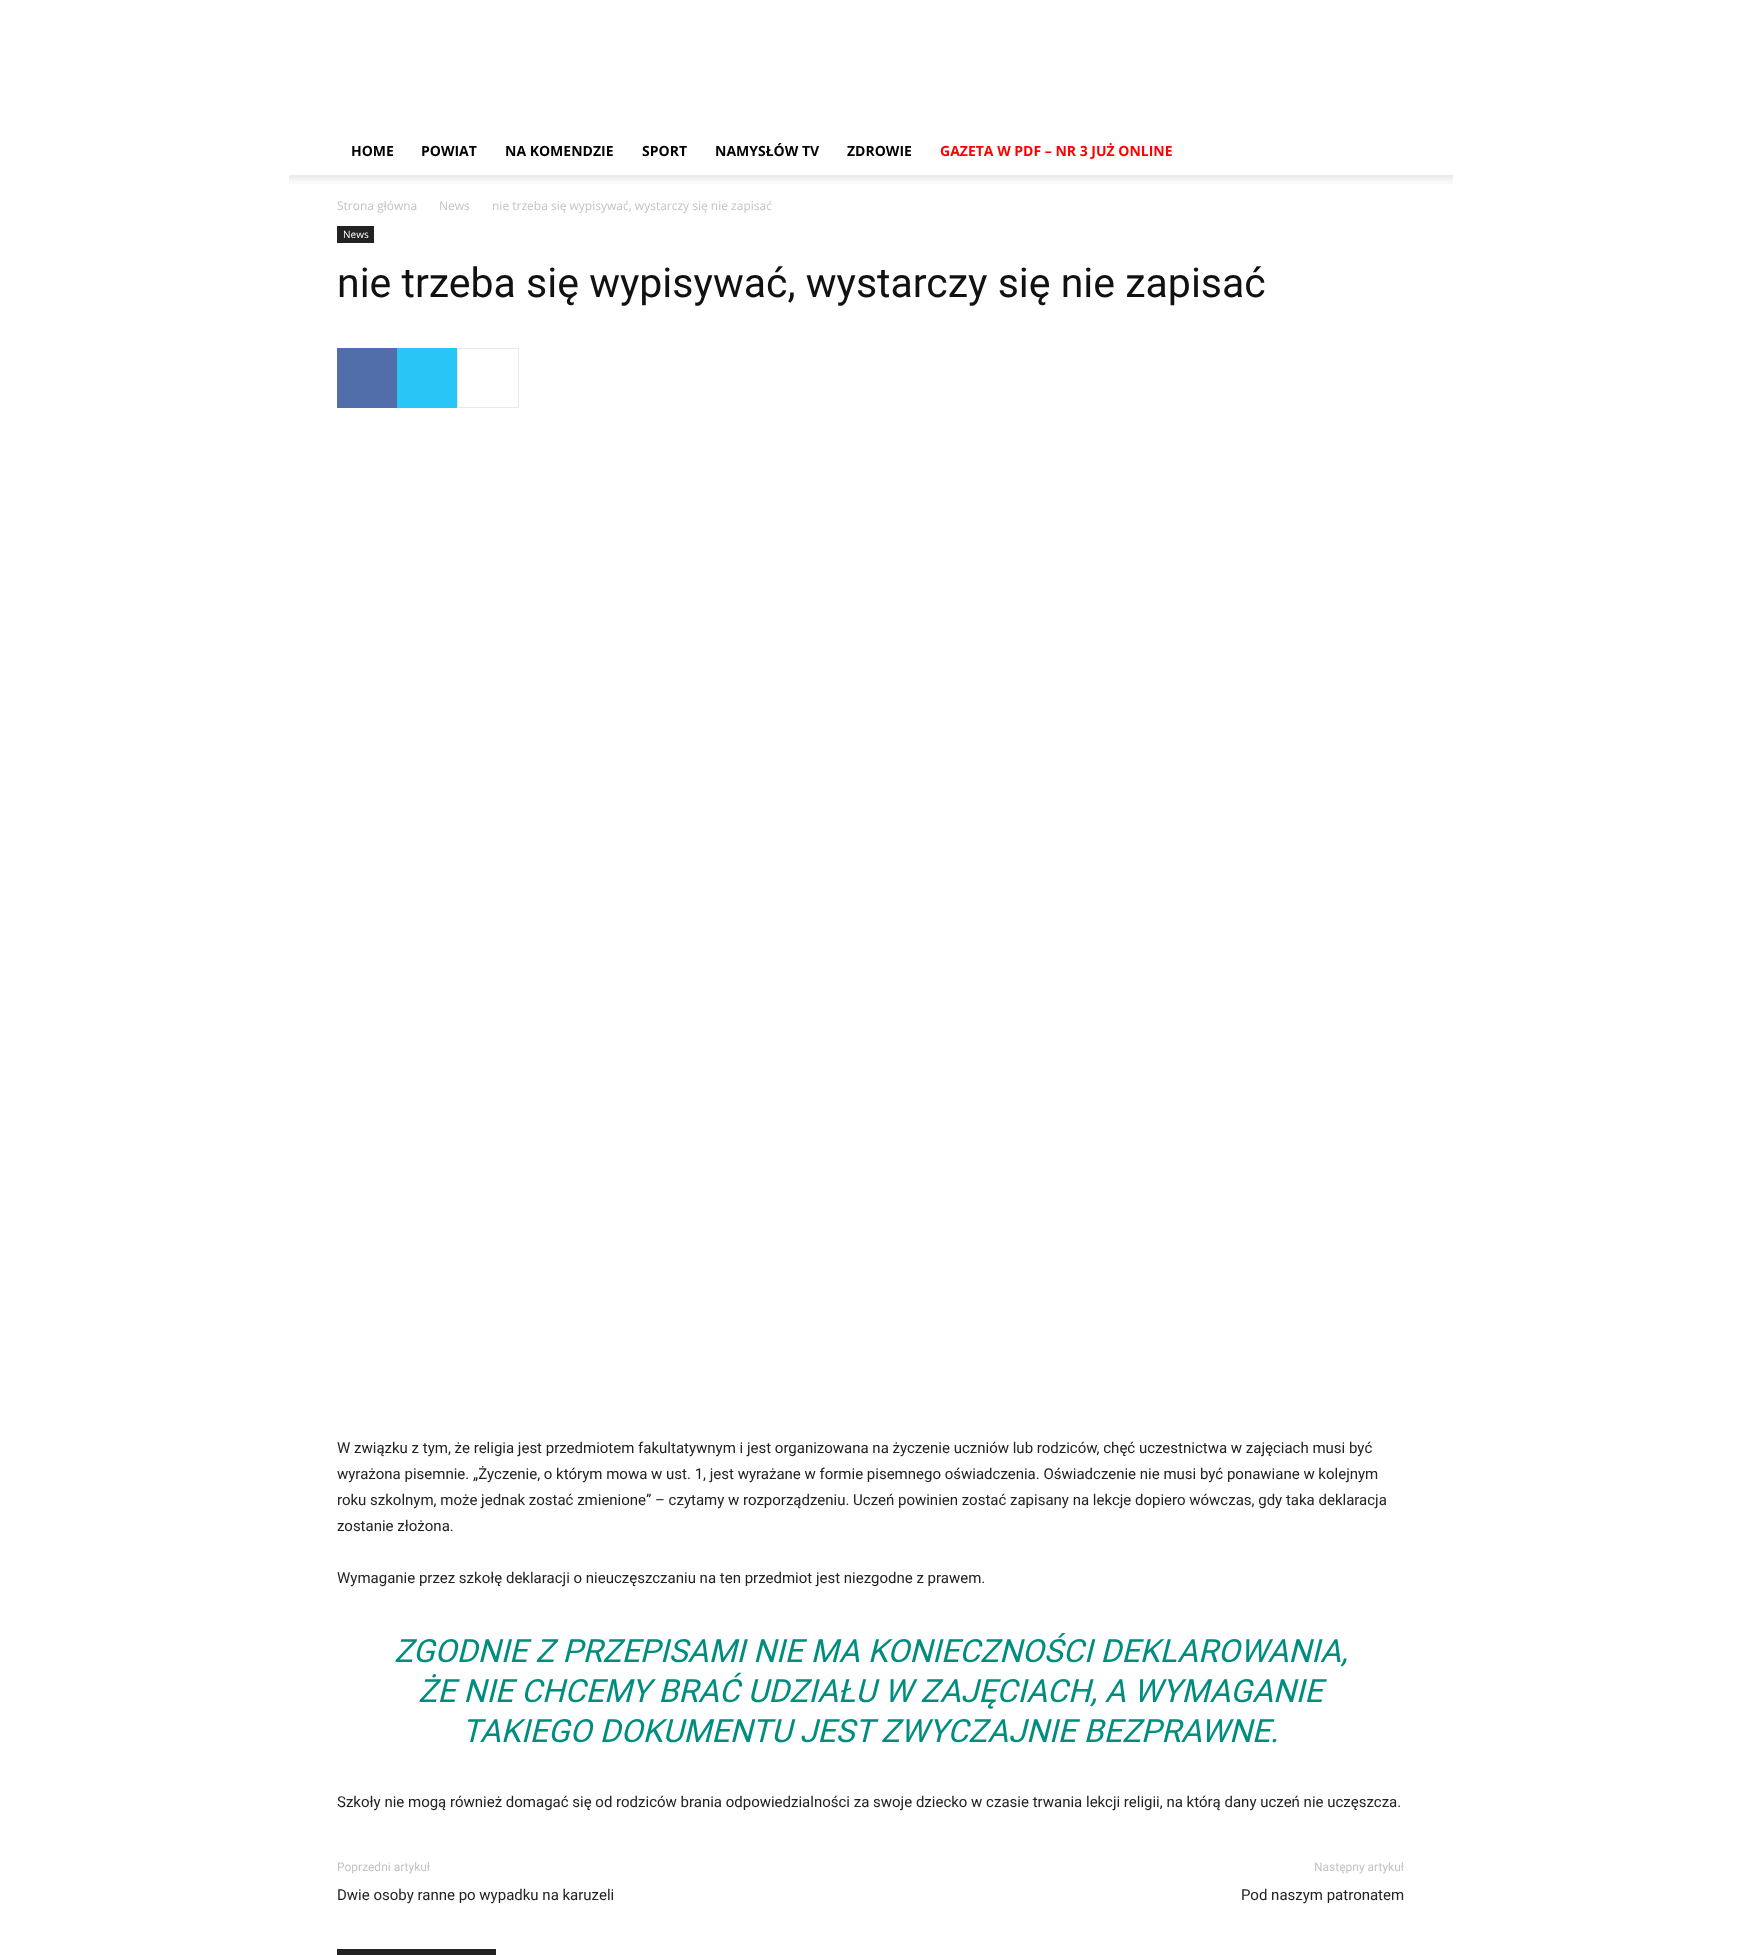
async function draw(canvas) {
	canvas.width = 1741;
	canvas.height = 1955;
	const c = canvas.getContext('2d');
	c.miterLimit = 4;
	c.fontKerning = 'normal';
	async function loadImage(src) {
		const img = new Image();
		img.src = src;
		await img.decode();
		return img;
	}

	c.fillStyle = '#fff';
	c.fillRect(0, 0, 1741, 1955);
	c.font = 'bold 14px Open Sans';
	c.fillStyle = '#000';
	for (const [text, x, y] of [
		['HOME', 351, 156],
		['POWIAT', 421, 156],
		['NA KOMENDZIE', 505, 156],
		['SPORT', 642, 156],
		['NAMYSŁÓW TV', 715, 156],
		['ZDROWIE', 847, 156],
	]) {
		c.fillText(text, x, y);
	}
	c.fillStyle = '#f00';
	c.fillText('GAZETA W PDF – NR 3 JUŻ ONLINE', 940, 156);
	c.drawImage(await loadImage('img1.png'), 289, 175, 1164, 9);
	c.font = '12px Open Sans';
	c.fillStyle = '#c3c3c3';
	for (const [text, x, y] of [
		['Strona główna', 337, 210],
		['News', 439, 210],
		['nie trzeba się wypisywać, wystarczy się nie zapisać', 492, 210],
	]) {
		c.fillText(text, x, y);
	}
	c.fillStyle = '#222';
	c.fillRect(337, 226, 37, 17);
	c.font = '10px Open Sans';
	c.fillStyle = '#fff';
	c.fillText('News', 343, 238);
	c.font = '41px Roboto';
	c.fillStyle = '#111';
	c.fillText('nie trzeba się wypisywać, wystarczy się nie zapisać', 337, 297);
	c.fillStyle = '#516eab';
	c.fillRect(337, 348, 60, 60);
	c.fillStyle = '#29c5f6';
	c.fillRect(397, 348, 60, 60);
	c.strokeStyle = '#e9e9e9';
	c.strokeRect(457.5, 348.5, 61, 59);
	c.font = '15px Roboto';
	c.fillStyle = '#222';
	for (const [text, x, y] of [
		['W związku z tym, że religia jest przedmiotem fakultatywnym i jest organizowana na życzenie uczniów lub rodziców, chęć uczestnictwa w zajęciach musi być', 337, 1453],
		['wyrażona pisemnie. „Życzenie, o którym mowa w ust. 1, jest wyrażane w formie pisemnego oświadczenia. Oświadczenie nie musi być ponawiane w kolejnym', 337, 1479],
		['roku szkolnym, może jednak zostać zmienione” – czytamy w rozporządzeniu. Uczeń powinien zostać zapisany na lekcje dopiero wówczas, gdy taka deklaracja', 337, 1505],
		['zostanie złożona.', 337, 1531],
		['Wymaganie przez szkołę deklaracji o nieuczęszczaniu na ten przedmiot jest niezgodne z prawem.', 337, 1583],
	]) {
		c.fillText(text, x, y);
	}
	c.font = 'italic 32px Roboto';
	c.fillStyle = '#008d7f';
	for (const [text, x, y] of [
		['ZGODNIE Z PRZEPISAMI NIE MA KONIECZNOŚCI DEKLAROWANIA,', 394, 1662],
		['ŻE NIE CHCEMY BRAĆ UDZIAŁU W ZAJĘCIACH, A WYMAGANIE', 418, 1702],
		['TAKIEGO DOKUMENTU JEST ZWYCZAJNIE BEZPRAWNE.', 462, 1742],
	]) {
		c.fillText(text, x, y);
	}
	c.font = '15px Roboto';
	c.fillStyle = '#222';
	c.fillText('Szkoły nie mogą również domagać się od rodziców brania odpowiedzialności za swoje dziecko w czasie trwania lekcji religii, na którą dany uczeń nie uczęszcza.', 337, 1807);
	c.font = '12px Roboto';
	c.fillStyle = '#c3c3c3';
	c.fillText('Poprzedni artykuł', 337, 1871);
	c.font = '15px Roboto';
	c.fillStyle = '#222';
	c.fillText('Dwie osoby ranne po wypadku na karuzeli', 337, 1900);
	c.font = '12px Roboto';
	c.fillStyle = '#c3c3c3';
	c.fillText('Następny artykuł', 1314, 1871);
	c.font = '15px Roboto';
	c.fillStyle = '#222';
	c.fillText('Pod naszym patronatem', 1241, 1900);
	c.fillRect(337, 1949, 159, 6);
}

draw(document.querySelector('canvas'));
